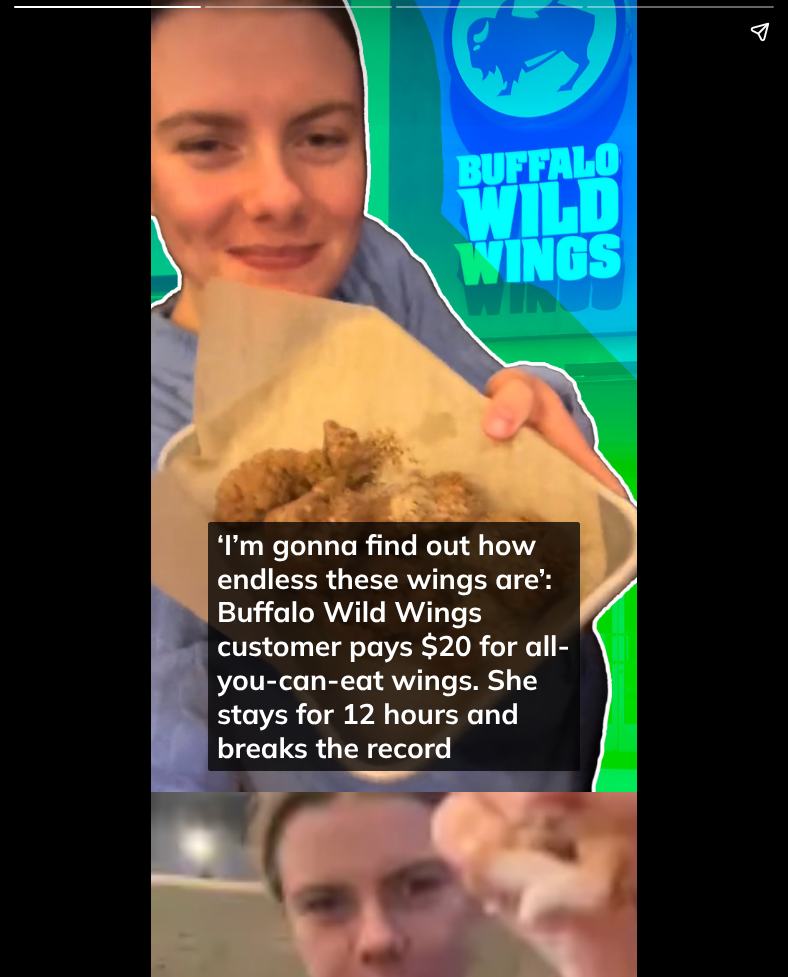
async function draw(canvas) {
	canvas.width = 788;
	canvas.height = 977;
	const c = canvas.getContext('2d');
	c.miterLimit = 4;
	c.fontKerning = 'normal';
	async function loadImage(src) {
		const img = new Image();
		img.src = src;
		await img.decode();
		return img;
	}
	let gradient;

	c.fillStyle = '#000';
	c.fillRect(0, 0, 788, 977);
	c.drawImage(await loadImage('img2.png'), 151, 0, 486, 792);
	gradient = c.createLinearGradient(394, 0, 394, 140);
	gradient.addColorStop(0, '#00000045');
	gradient.addColorStop(0.33, '#00000021');
	gradient.addColorStop(0.67, '#00000012');
	gradient.addColorStop(1, '#00000000');
	c.fillStyle = gradient;
	c.fillRect(151, 0, 486, 126);
	c.fillStyle = '#fff';
	c.beginPath();
	c.roundRect(14, 6, 187, 2, 1);
	c.fill();
	c.fillStyle = '#ffffff66';
	c.beginPath();
	c.roundRect(205, 6, 187, 2, 1);
	c.fill();
	c.beginPath();
	c.roundRect(396, 6, 187, 2, 1);
	c.fill();
	c.beginPath();
	c.roundRect(587, 6, 187, 2, 1);
	c.fill();
	c.drawImage(await loadImage('img1.png'), 750, 22, 20, 20);
	c.fillStyle = '#000000bf';
	c.beginPath();
	c.roundRect(208, 522, 372, 249, 2.5);
	c.fill();
	c.font = 'bold 28.25px Mulish';
	c.fillStyle = '#fff';
	for (const [text, x, y] of [
		['‘I’m gonna find out how', 217, 555],
		['endless these wings are’:', 217, 589],
		['Buffalo Wild Wings', 217, 622],
		['customer pays $20 for all-', 217, 656],
		['you-can-eat wings. She', 217, 690],
		['stays for 12 hours and', 217, 724],
		['breaks the record', 217, 758],
	]) {
		c.fillText(text, x, y);
	}
	c.drawImage(await loadImage('img3.png'), 151, 792, 486, 185);
}

draw(document.querySelector('canvas'));
